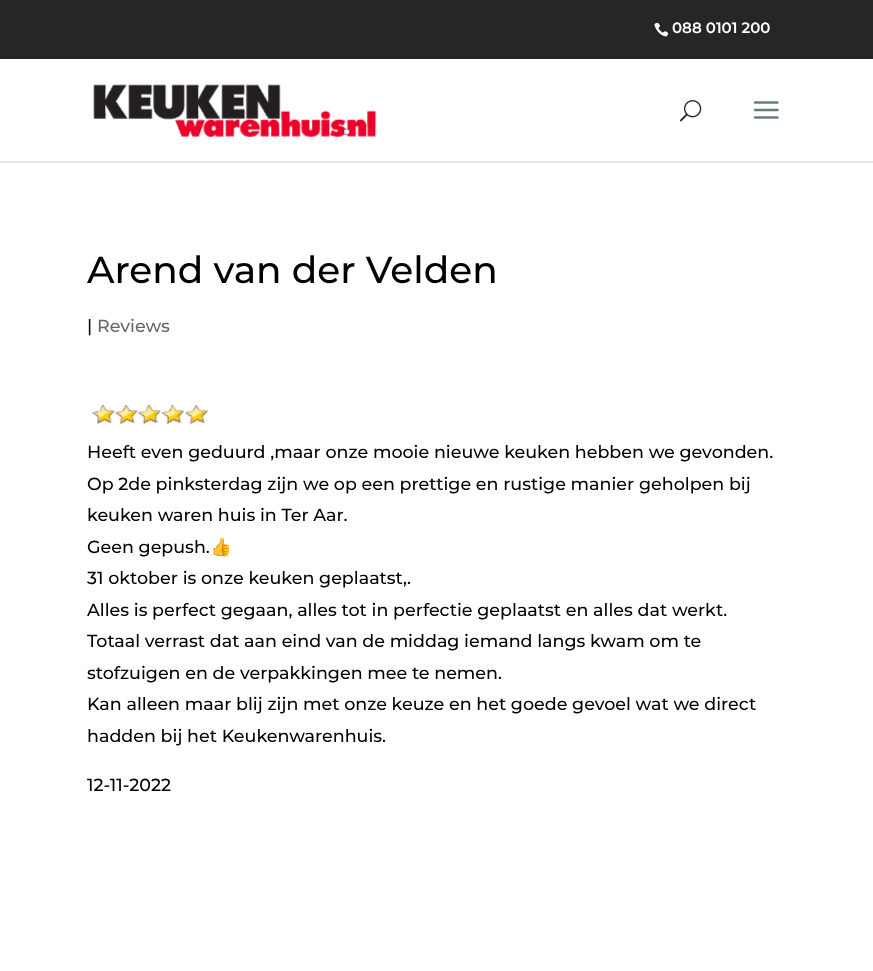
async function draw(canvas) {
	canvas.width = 873;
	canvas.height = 971;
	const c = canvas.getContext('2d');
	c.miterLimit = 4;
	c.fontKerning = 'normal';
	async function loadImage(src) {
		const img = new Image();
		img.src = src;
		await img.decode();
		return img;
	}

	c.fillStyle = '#fff';
	c.fillRect(0, 0, 873, 971);
	c.fillStyle = '#272626';
	c.fillRect(0, 0, 873, 59);
	c.drawImage(await loadImage('img1.png'), 654, 22, 15, 15);
	c.font = '600 15px Montserrat';
	c.fillStyle = '#fff';
	c.fillText('088 0101 200', 672, 33);
	c.fillStyle = '#e6e6e6';
	c.beginPath();
	c.moveTo(0, 161);
	c.lineTo(0, 163);
	c.lineTo(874, 163);
	c.lineTo(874, 63);
	c.lineTo(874, 161);
	c.closePath();
	c.fill();
	c.drawImage(await loadImage('img2.png'), 93, 84, 284, 53);
	c.drawImage(await loadImage('img3.png'), 680, 100, 22, 22);
	c.drawImage(await loadImage('img4.png'), 753, 101, 26, 18);
	c.font = '500 37.5px Montserrat';
	c.fillStyle = '#000';
	c.fillText('Arend van der Velden', 87, 283);
	c.font = '500 17.5px Montserrat';
	c.fillText('|', 87, 332);
	c.fillStyle = '#666';
	c.fillText('Reviews', 97, 332);
	c.drawImage(await loadImage('img5.png'), 91, 405, 117, 19);
	c.fillStyle = '#000';
	for (const [text, x, y] of [
		['Heeft even geduurd ,maar onze mooie nieuwe keuken hebben we gevonden.', 87, 458],
		['Op 2de pinksterdag zijn we op een prettige en rustige manier geholpen bij', 87, 490],
		['keuken waren huis in Ter Aar.', 87, 521],
		['Geen gepush.', 87, 553],
	]) {
		c.fillText(text, x, y);
	}
	c.font = '17.5px Noto Color Emoji';
	c.fillText('👍', 210, 553);
	c.font = '500 17.5px Montserrat';
	for (const [text, x, y] of [
		['31 oktober is onze keuken geplaatst,.', 87, 584],
		['Alles is perfect gegaan, alles tot in perfectie geplaatst en alles dat werkt.', 87, 616],
		['Totaal verrast dat aan eind van de middag iemand langs kwam om te', 87, 647],
		['stofzuigen en de verpakkingen mee te nemen.', 87, 679],
		['Kan alleen maar blij zijn met onze keuze en het goede gevoel wat we direct', 87, 710],
		['hadden bij het Keukenwarenhuis.', 87, 742],
		['12-11-2022', 87, 791],
	]) {
		c.fillText(text, x, y);
	}
}

draw(document.querySelector('canvas'));
